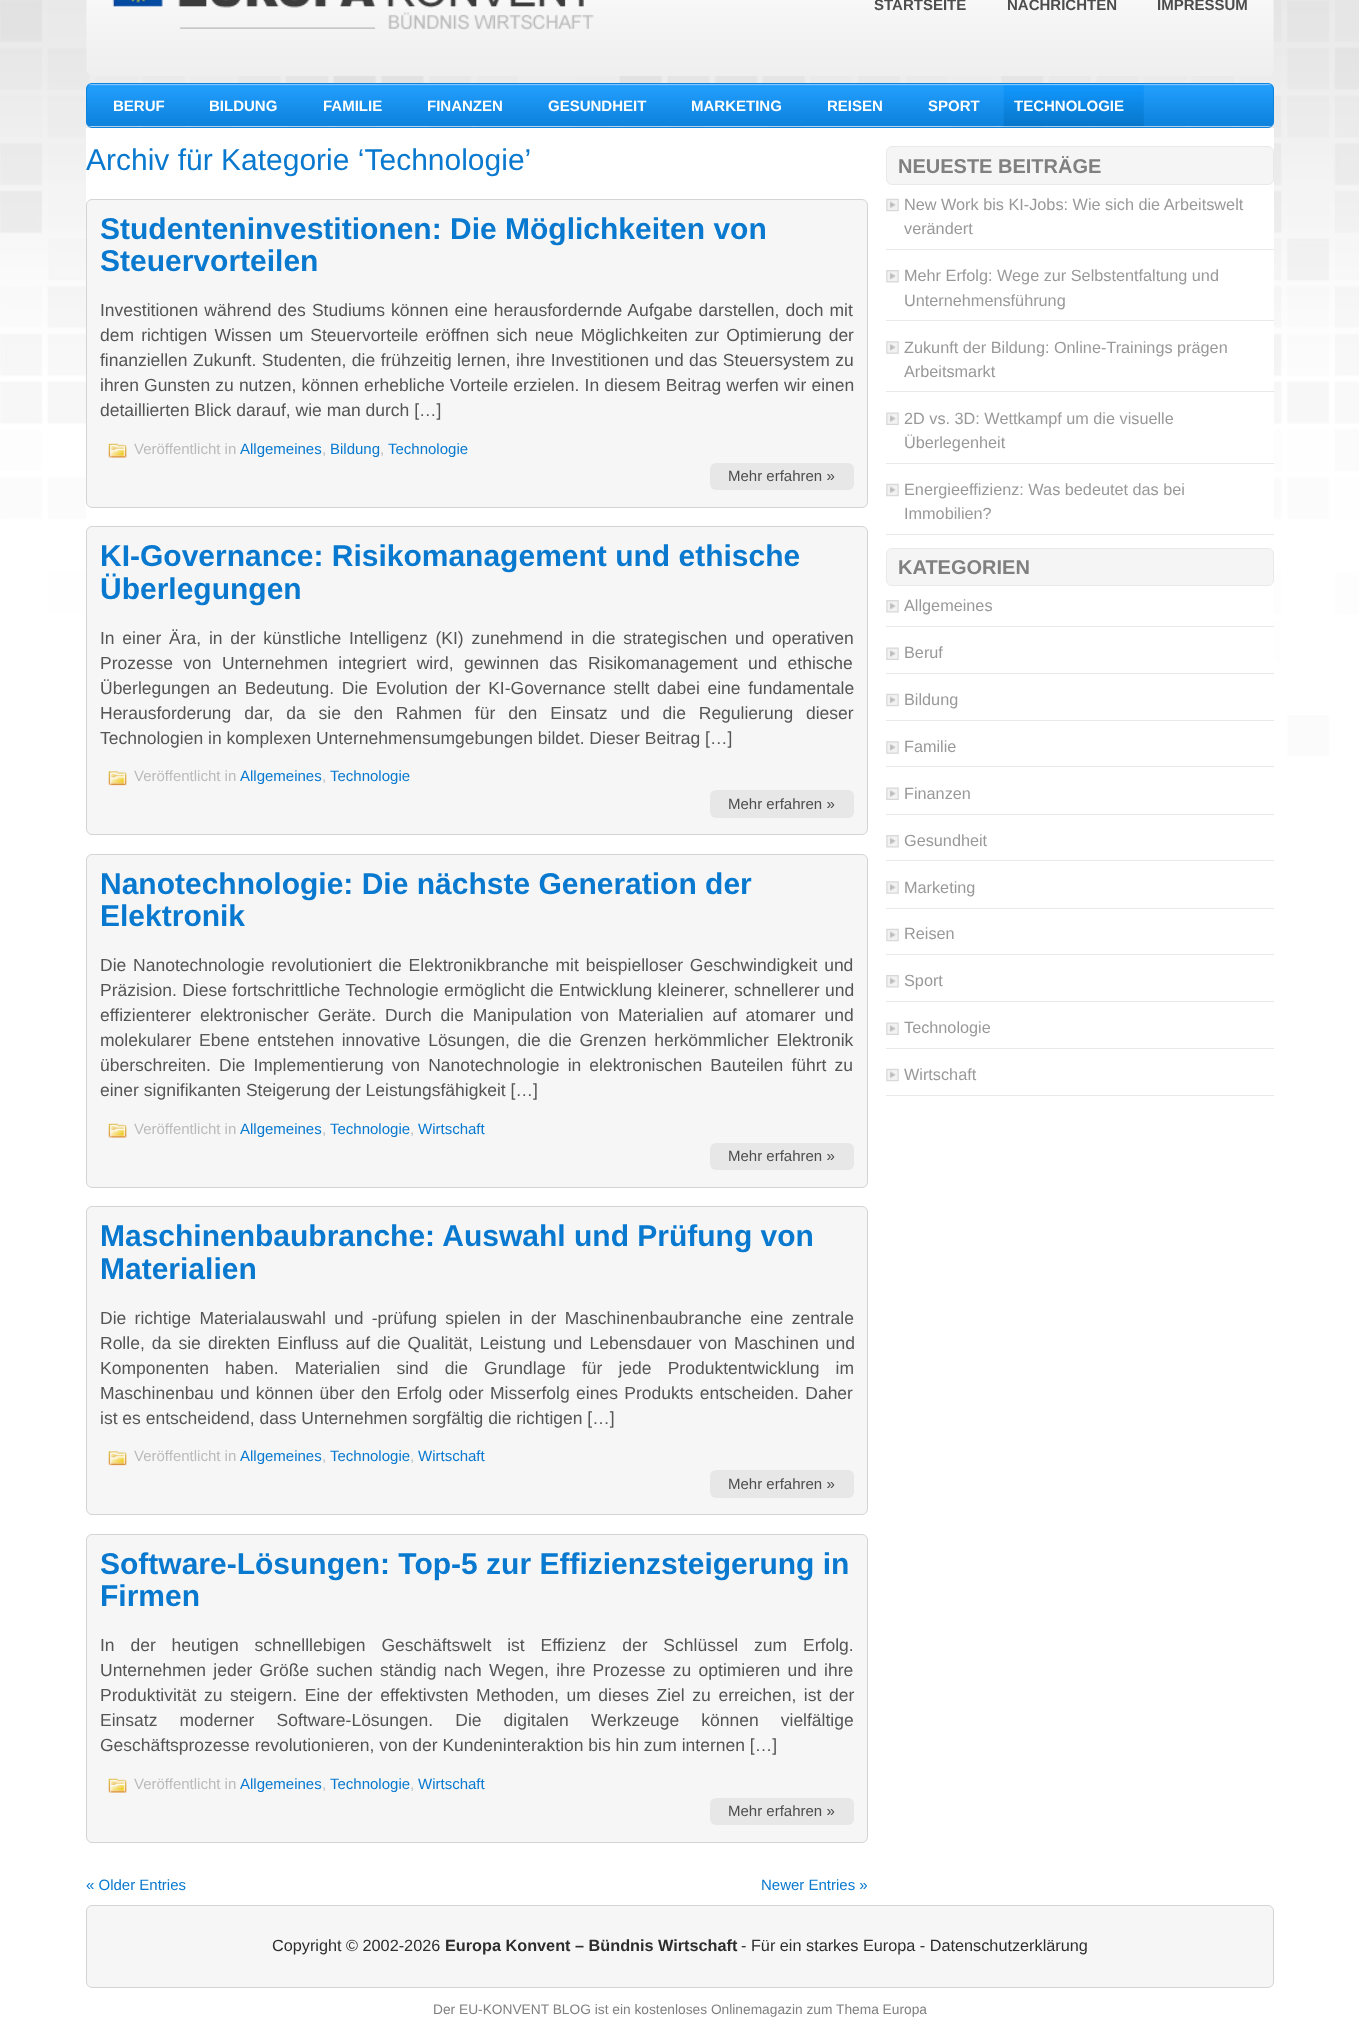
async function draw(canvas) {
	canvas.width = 1359;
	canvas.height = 2023;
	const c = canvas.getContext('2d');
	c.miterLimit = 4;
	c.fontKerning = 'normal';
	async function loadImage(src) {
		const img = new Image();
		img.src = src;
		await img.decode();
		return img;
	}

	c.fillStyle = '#fff';
	c.fillRect(0, 0, 1359, 2023);
	c.drawImage(await loadImage('img1.png'), 0, 0, 1359, 756);
	c.drawImage(await loadImage('img2.png'), 86, 0, 1188, 76);
	c.drawImage(await loadImage('img3.png'), 112, 0, 482, 30);
	c.font = 'bold 15px Liberation Sans';
	c.fillStyle = '#4e4d4d';
	for (const [text, x, y] of [
		['STARTSEITE', 874, 10],
		['NACHRICHTEN', 1007, 10],
		['IMPRESSUM', 1157, 10],
	]) {
		c.fillText(text, x, y);
	}
	c.drawImage(await loadImage('img4.png'), 86, 83, 1188, 44);
	c.beginPath();
	c.roundRect(86.5, 83.5, 1187, 44, 5.5);
	c.strokeStyle = '#0d83dd';
	c.stroke();
	c.fillStyle = '#fff';
	for (const [text, x, y] of [
		['BERUF', 113, 111],
		['BILDUNG', 209, 111],
		['FAMILIE', 323, 111],
		['FINANZEN', 427, 111],
		['GESUNDHEIT', 548, 111],
		['MARKETING', 691, 111],
		['REISEN', 827, 111],
		['SPORT', 928, 111],
	]) {
		c.fillText(text, x, y);
	}
	c.drawImage(await loadImage('img5.png'), 1003, 85, 141, 42);
	c.fillText('TECHNOLOGIE', 1014, 111);
	c.fillRect(86, 128, 1188, 628);
	c.font = '30px Liberation Sans';
	c.fillStyle = '#0979cf';
	c.fillText('Archiv für Kategorie ‘Technologie’', 86, 170);
	c.fillStyle = '#f6f6f6';
	c.beginPath();
	c.roundRect(86.5, 199.5, 781, 308, 5.5);
	c.fill();
	c.strokeStyle = '#d4d4d4';
	c.stroke();
	c.font = 'bold 30px Liberation Sans';
	c.fillStyle = '#0979cf';
	c.fillText('Studenteninvestitionen: Die Möglichkeiten von', 100, 239);
	c.fillText('Steuervorteilen', 100, 271);
	c.wordSpacing = '1.25px';
	c.font = '17.5px Liberation Sans';
	c.fillStyle = '#555';
	c.fillText('Investitionen während des Studiums können eine herausfordernde Aufgabe darstellen, doch mit', 100, 316);
	c.wordSpacing = '2.25px';
	c.fillText('dem richtigen Wissen um Steuervorteile eröffnen sich neue Möglichkeiten zur Optimierung der', 100, 341);
	c.wordSpacing = '0.6px';
	c.fillText('finanziellen Zukunft. Studenten, die frühzeitig lernen, ihre Investitionen und das Steuersystem zu', 100, 366);
	c.wordSpacing = '0.25px';
	c.fillText('ihren Gunsten zu nutzen, können erhebliche Vorteile erzielen. In diesem Beitrag werfen wir einen', 100, 391);
	c.wordSpacing = '0px';
	c.fillText('detaillierten Blick darauf, wie man durch […]', 100, 416);
	c.drawImage(await loadImage('img6.png'), 108, 443, 19, 15);
	c.font = '15px Liberation Sans';
	c.fillStyle = '#bbb';
	c.fillText('Veröffentlicht in', 134, 454);
	c.fillStyle = '#0979cf';
	c.fillText('Allgemeines', 240, 454);
	c.fillStyle = '#bbb';
	c.fillText(',', 322, 454);
	c.fillStyle = '#0979cf';
	c.fillText('Bildung', 330, 454);
	c.fillStyle = '#bbb';
	c.fillText(',', 380, 454);
	c.fillStyle = '#0979cf';
	c.fillText('Technologie', 388, 454);
	c.fillStyle = '#e7e7e7';
	c.beginPath();
	c.roundRect(710, 463, 144, 27, 6);
	c.fill();
	c.fillStyle = '#4e4d4d';
	c.fillText('Mehr erfahren »', 728, 481);
	c.fillStyle = '#f6f6f6';
	c.beginPath();
	c.roundRect(86.5, 526.5, 781, 308, 5.5);
	c.fill();
	c.stroke();
	c.font = 'bold 30px Liberation Sans';
	c.fillStyle = '#0979cf';
	c.fillText('KI-Governance: Risikomanagement und ethische', 100, 566);
	c.fillText('Überlegungen', 100, 599);
	c.wordSpacing = '2.9px';
	c.font = '17.5px Liberation Sans';
	c.fillStyle = '#555';
	c.fillText('In einer Ära, in der künstliche Intelligenz (KI) zunehmend in die strategischen und operativen', 100, 644);
	c.wordSpacing = '5.5px';
	c.fillText('Prozesse von Unternehmen integriert wird, gewinnen das Risikomanagement und ethische', 100, 669);
	c.wordSpacing = '2.75px';
	c.fillText('Überlegungen an Bedeutung. Die Evolution der KI-Governance stellt dabei eine fundamentale', 100, 694);
	c.wordSpacing = '8px';
	c.fillText('Herausforderung dar, da sie den Rahmen für den Einsatz und die Regulierung dieser', 100, 719);
	c.wordSpacing = '0px';
	c.fillText('Technologien in komplexen Unternehmensumgebungen bildet. Dieser Beitrag […]', 100, 744);
	c.drawImage(await loadImage('img7.png'), 108, 771, 19, 15);
	c.font = '15px Liberation Sans';
	c.fillStyle = '#bbb';
	c.fillText('Veröffentlicht in', 134, 781);
	c.fillStyle = '#0979cf';
	c.fillText('Allgemeines', 240, 781);
	c.fillStyle = '#bbb';
	c.fillText(',', 322, 781);
	c.fillStyle = '#0979cf';
	c.fillText('Technologie', 330, 781);
	c.fillStyle = '#e7e7e7';
	c.beginPath();
	c.roundRect(710, 790, 144, 28, 6);
	c.fill();
	c.fillStyle = '#4e4d4d';
	c.fillText('Mehr erfahren »', 728, 809);
	c.fillStyle = '#f6f6f6';
	c.beginPath();
	c.roundRect(86.5, 854.5, 781, 333, 5.5);
	c.fill();
	c.stroke();
	c.font = 'bold 30px Liberation Sans';
	c.fillStyle = '#0979cf';
	c.fillText('Nanotechnologie: Die nächste Generation der', 100, 894);
	c.fillText('Elektronik', 100, 926);
	c.wordSpacing = '2px';
	c.font = '17.5px Liberation Sans';
	c.fillStyle = '#555';
	c.fillText('Die Nanotechnologie revolutioniert die Elektronikbranche mit beispielloser Geschwindigkeit und', 100, 971);
	c.wordSpacing = '0.5px';
	c.fillText('Präzision. Diese fortschrittliche Technologie ermöglicht die Entwicklung kleinerer, schnellerer und', 100, 996);
	c.wordSpacing = '4px';
	c.fillText('effizienterer elektronischer Geräte. Durch die Manipulation von Materialien auf atomarer und', 100, 1021);
	c.wordSpacing = '2.75px';
	c.fillText('molekularer Ebene entstehen innovative Lösungen, die die Grenzen herkömmlicher Elektronik', 100, 1046);
	c.wordSpacing = '3.25px';
	c.fillText('überschreiten. Die Implementierung von Nanotechnologie in elektronischen Bauteilen führt zu', 100, 1071);
	c.wordSpacing = '0px';
	c.fillText('einer signifikanten Steigerung der Leistungsfähigkeit […]', 100, 1096);
	c.drawImage(await loadImage('img6.png'), 108, 1123, 19, 15);
	c.font = '15px Liberation Sans';
	c.fillStyle = '#bbb';
	c.fillText('Veröffentlicht in', 134, 1134);
	c.fillStyle = '#0979cf';
	c.fillText('Allgemeines', 240, 1134);
	c.fillStyle = '#bbb';
	c.fillText(',', 322, 1134);
	c.fillStyle = '#0979cf';
	c.fillText('Technologie', 330, 1134);
	c.fillStyle = '#bbb';
	c.fillText(',', 410, 1134);
	c.fillStyle = '#0979cf';
	c.fillText('Wirtschaft', 418, 1134);
	c.fillStyle = '#e7e7e7';
	c.beginPath();
	c.roundRect(710, 1143, 144, 27, 6);
	c.fill();
	c.fillStyle = '#4e4d4d';
	c.fillText('Mehr erfahren »', 728, 1161);
	c.fillStyle = '#f6f6f6';
	c.beginPath();
	c.roundRect(86.5, 1206.5, 781, 308, 5.5);
	c.fill();
	c.stroke();
	c.font = 'bold 30px Liberation Sans';
	c.fillStyle = '#0979cf';
	c.fillText('Maschinenbaubranche: Auswahl und Prüfung von', 100, 1246);
	c.fillText('Materialien', 100, 1279);
	c.wordSpacing = '3.5px';
	c.font = '17.5px Liberation Sans';
	c.fillStyle = '#555';
	c.fillText('Die richtige Materialauswahl und -prüfung spielen in der Maschinenbaubranche eine zentrale', 100, 1324);
	c.wordSpacing = '2.25px';
	c.fillText('Rolle, da sie direkten Einfluss auf die Qualität, Leistung und Lebensdauer von Maschinen und', 100, 1349);
	c.wordSpacing = '11.25px';
	c.fillText('Komponenten haben. Materialien sind die Grundlage für jede Produktentwicklung im', 100, 1374);
	c.wordSpacing = '1.5px';
	c.fillText('Maschinenbau und können über den Erfolg oder Misserfolg eines Produkts entscheiden. Daher', 100, 1399);
	c.wordSpacing = '0px';
	c.fillText('ist es entscheidend, dass Unternehmen sorgfältig die richtigen […]', 100, 1424);
	c.drawImage(await loadImage('img7.png'), 108, 1451, 19, 15);
	c.font = '15px Liberation Sans';
	c.fillStyle = '#bbb';
	c.fillText('Veröffentlicht in', 134, 1461);
	c.fillStyle = '#0979cf';
	c.fillText('Allgemeines', 240, 1461);
	c.fillStyle = '#bbb';
	c.fillText(',', 322, 1461);
	c.fillStyle = '#0979cf';
	c.fillText('Technologie', 330, 1461);
	c.fillStyle = '#bbb';
	c.fillText(',', 410, 1461);
	c.fillStyle = '#0979cf';
	c.fillText('Wirtschaft', 418, 1461);
	c.fillStyle = '#e7e7e7';
	c.beginPath();
	c.roundRect(710, 1470, 144, 28, 6);
	c.fill();
	c.fillStyle = '#4e4d4d';
	c.fillText('Mehr erfahren »', 728, 1489);
	c.fillStyle = '#f6f6f6';
	c.beginPath();
	c.roundRect(86.5, 1534.5, 781, 308, 5.5);
	c.fill();
	c.stroke();
	c.font = 'bold 30px Liberation Sans';
	c.fillStyle = '#0979cf';
	c.fillText('Software-Lösungen: Top-5 zur Effizienzsteigerung in', 100, 1574);
	c.fillText('Firmen', 100, 1606);
	c.wordSpacing = '11px';
	c.font = '17.5px Liberation Sans';
	c.fillStyle = '#555';
	c.fillText('In der heutigen schnelllebigen Geschäftswelt ist Effizienz der Schlüssel zum Erfolg.', 100, 1651);
	c.wordSpacing = '2.4px';
	c.fillText('Unternehmen jeder Größe suchen ständig nach Wegen, ihre Prozesse zu optimieren und ihre', 100, 1676);
	c.wordSpacing = '2.75px';
	c.fillText('Produktivität zu steigern. Eine der effektivsten Methoden, um dieses Ziel zu erreichen, ist der', 100, 1701);
	c.wordSpacing = '17.25px';
	c.fillText('Einsatz moderner Software-Lösungen. Die digitalen Werkzeuge können vielfältige', 100, 1726);
	c.wordSpacing = '0px';
	c.fillText('Geschäftsprozesse revolutionieren, von der Kundeninteraktion bis hin zum internen […]', 100, 1751);
	c.drawImage(await loadImage('img6.png'), 108, 1778, 19, 15);
	c.font = '15px Liberation Sans';
	c.fillStyle = '#bbb';
	c.fillText('Veröffentlicht in', 134, 1789);
	c.fillStyle = '#0979cf';
	c.fillText('Allgemeines', 240, 1789);
	c.fillStyle = '#bbb';
	c.fillText(',', 322, 1789);
	c.fillStyle = '#0979cf';
	c.fillText('Technologie', 330, 1789);
	c.fillStyle = '#bbb';
	c.fillText(',', 410, 1789);
	c.fillStyle = '#0979cf';
	c.fillText('Wirtschaft', 418, 1789);
	c.fillStyle = '#e7e7e7';
	c.beginPath();
	c.roundRect(710, 1798, 144, 27, 6);
	c.fill();
	c.fillStyle = '#4e4d4d';
	c.fillText('Mehr erfahren »', 728, 1816);
	c.fillStyle = '#0979cf';
	c.fillText('« Older Entries', 86, 1890);
	c.fillText('Newer Entries »', 761, 1890);
	c.fillStyle = '#f5f5f5';
	c.beginPath();
	c.roundRect(886.5, 146.5, 387, 38, 5.5);
	c.fill();
	c.strokeStyle = '#e9e9e9';
	c.stroke();
	c.font = 'bold 20px Liberation Sans';
	c.fillStyle = '#808080';
	c.fillText('NEUESTE BEITRÄGE', 898, 173);
	c.drawImage(await loadImage('img8.png'), 886, 198, 13, 14);
	c.fillStyle = '#e9e9e9';
	c.fillRect(886, 249, 388, 1);
	c.font = '16.25px Liberation Sans';
	c.fillStyle = '#999';
	c.fillText('New Work bis KI-Jobs: Wie sich die Arbeitswelt', 904, 210);
	c.fillText('verändert', 904, 234);
	c.drawImage(await loadImage('img9.png'), 886, 270, 13, 13);
	c.fillStyle = '#e9e9e9';
	c.fillRect(886, 320, 388, 1);
	c.fillStyle = '#999';
	c.fillText('Mehr Erfolg: Wege zur Selbstentfaltung und', 904, 281);
	c.fillText('Unternehmensführung', 904, 306);
	c.drawImage(await loadImage('img10.png'), 886, 341, 13, 13);
	c.fillStyle = '#e9e9e9';
	c.fillRect(886, 391, 388, 1);
	c.fillStyle = '#999';
	c.fillText('Zukunft der Bildung: Online-Trainings prägen', 904, 353);
	c.fillText('Arbeitsmarkt', 904, 377);
	c.drawImage(await loadImage('img11.png'), 886, 412, 13, 13);
	c.fillStyle = '#e9e9e9';
	c.fillRect(886, 463, 388, 1);
	c.fillStyle = '#999';
	c.fillText('2D vs. 3D: Wettkampf um die visuelle', 904, 424);
	c.fillText('Überlegenheit', 904, 448);
	c.drawImage(await loadImage('img8.png'), 886, 483, 13, 14);
	c.fillStyle = '#e9e9e9';
	c.fillRect(886, 534, 388, 1);
	c.fillStyle = '#999';
	c.fillText('Energieeffizienz: Was bedeutet das bei', 904, 495);
	c.fillText('Immobilien?', 904, 519);
	c.fillStyle = '#f5f5f5';
	c.beginPath();
	c.roundRect(886.5, 548.5, 387, 37, 5.5);
	c.fill();
	c.stroke();
	c.font = 'bold 20px Liberation Sans';
	c.fillStyle = '#808080';
	c.fillText('KATEGORIEN', 898, 574);
	c.drawImage(await loadImage('img9.png'), 886, 600, 13, 13);
	c.fillStyle = '#e9e9e9';
	c.fillRect(886, 626, 388, 1);
	c.font = '16.25px Liberation Sans';
	c.fillStyle = '#999';
	c.fillText('Allgemeines', 904, 611);
	c.drawImage(await loadImage('img11.png'), 886, 647, 13, 13);
	c.fillStyle = '#e9e9e9';
	c.fillRect(886, 673, 388, 1);
	c.fillStyle = '#999';
	c.fillText('Beruf', 904, 658);
	c.drawImage(await loadImage('img12.png'), 886, 693, 13, 14);
	c.fillStyle = '#e9e9e9';
	c.fillRect(886, 720, 388, 1);
	c.fillStyle = '#999';
	c.fillText('Bildung', 904, 705);
	c.drawImage(await loadImage('img10.png'), 886, 741, 13, 13);
	c.fillStyle = '#e9e9e9';
	c.fillRect(886, 766, 388, 1);
	c.fillStyle = '#999';
	c.fillText('Familie', 904, 752);
	c.drawImage(await loadImage('img11.png'), 886, 787, 13, 13);
	c.fillStyle = '#e9e9e9';
	c.fillRect(886, 814, 388, 1);
	c.fillStyle = '#999';
	c.fillText('Finanzen', 904, 799);
	c.drawImage(await loadImage('img9.png'), 886, 835, 13, 13);
	c.fillStyle = '#e9e9e9';
	c.fillRect(886, 860, 388, 1);
	c.fillStyle = '#999';
	c.fillText('Gesundheit', 904, 846);
	c.drawImage(await loadImage('img10.png'), 886, 881, 13, 13);
	c.fillStyle = '#e9e9e9';
	c.fillRect(886, 908, 388, 1);
	c.fillStyle = '#999';
	c.fillText('Marketing', 904, 893);
	c.drawImage(await loadImage('img8.png'), 886, 928, 13, 14);
	c.fillStyle = '#e9e9e9';
	c.fillRect(886, 954, 388, 1);
	c.fillStyle = '#999';
	c.fillText('Reisen', 904, 939);
	c.drawImage(await loadImage('img9.png'), 886, 975, 13, 13);
	c.fillStyle = '#e9e9e9';
	c.fillRect(886, 1001, 388, 1);
	c.fillStyle = '#999';
	c.fillText('Sport', 904, 986);
	c.drawImage(await loadImage('img11.png'), 886, 1022, 13, 13);
	c.fillStyle = '#e9e9e9';
	c.fillRect(886, 1048, 388, 1);
	c.fillStyle = '#999';
	c.fillText('Technologie', 904, 1033);
	c.drawImage(await loadImage('img8.png'), 886, 1068, 13, 14);
	c.fillStyle = '#e9e9e9';
	c.fillRect(886, 1095, 388, 1);
	c.fillStyle = '#999';
	c.fillText('Wirtschaft', 904, 1080);
	c.fillStyle = '#f6f6f6';
	c.beginPath();
	c.roundRect(86.5, 1905.5, 1187, 82, 5.5);
	c.fill();
	c.strokeStyle = '#d4d4d4';
	c.stroke();
	c.fillStyle = '#2d2d2d';
	c.fillText('Copyright © 2002-2026', 272, 1951);
	c.font = 'bold 16.25px Liberation Sans';
	c.fillText('Europa Konvent – Bündnis Wirtschaft', 445, 1951);
	c.font = '16.25px Liberation Sans';
	c.fillText('- Für ein starkes Europa - Datenschutzerklärung', 741, 1951);
	c.font = '13.75px Liberation Sans';
	c.fillStyle = '#808080';
	c.fillText('Der EU-KONVENT BLOG ist ein kostenloses Onlinemagazin zum Thema Europa', 433, 2014);
}

draw(document.querySelector('canvas'));
